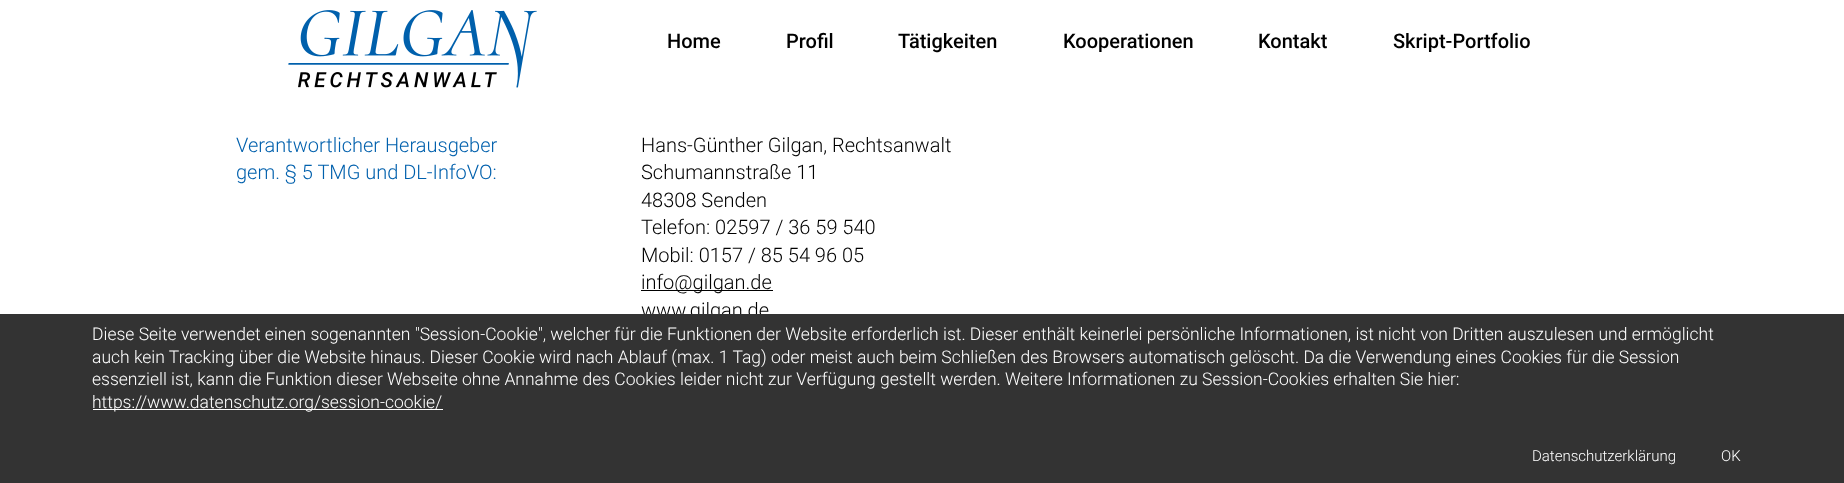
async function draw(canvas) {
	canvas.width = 1844;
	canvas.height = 483;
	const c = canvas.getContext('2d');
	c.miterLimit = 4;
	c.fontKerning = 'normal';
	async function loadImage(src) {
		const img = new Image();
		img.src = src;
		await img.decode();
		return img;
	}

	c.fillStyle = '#fff';
	c.fillRect(0, 0, 1844, 483);
	c.drawImage(await loadImage('img1.png'), 288, 10, 249, 78);
	c.font = '500 20px Roboto';
	c.fillStyle = '#000';
	for (const [text, x, y] of [
		['Home', 667, 48],
		['Profil', 786, 48],
		['Tätigkeiten', 898, 48],
		['Kooperationen', 1063, 48],
		['Kontakt', 1258, 48],
		['Skript-Portfolio', 1393, 48],
	]) {
		c.fillText(text, x, y);
	}
	c.font = '300 20px Roboto';
	c.fillStyle = '#0060ad';
	c.fillText('Verantwortlicher Herausgeber', 236, 152);
	c.fillText('gem. § 5 TMG und DL-InfoVO:', 236, 179);
	c.fillStyle = '#000';
	for (const [text, x, y] of [
		['Hans-Günther Gilgan, Rechtsanwalt', 641, 152],
		['Schumannstraße 11', 641, 179],
		['48308 Senden', 641, 207],
		['Telefon: 02597 / 36 59 540', 641, 234],
		['Mobil: 0157 / 85 54 96 05', 641, 262],
	]) {
		c.fillText(text, x, y);
	}
	c.fillRect(641, 290, 132, 1);
	c.fillText('info@gilgan.de', 641, 289);
	c.fillText('www.gilgan.de', 641, 317);
	c.fillStyle = '#333';
	c.fillRect(0, 314, 1844, 169);
	c.font = '300 17.5px Roboto';
	c.fillStyle = '#fff';
	for (const [text, x, y] of [
		['Diese Seite verwendet einen sogenannten "Session-Cookie", welcher für die Funktionen der Website erforderlich ist. Dieser enthält keinerlei persönliche Informationen, ist nicht von Dritten auszulesen und ermöglicht', 92, 340],
		['auch kein Tracking über die Website hinaus. Dieser Cookie wird nach Ablauf (max. 1 Tag) oder meist auch beim Schließen des Browsers automatisch gelöscht. Da die Verwendung eines Cookies für die Session', 92, 363],
		['essenziell ist, kann die Funktion dieser Webseite ohne Annahme des Cookies leider nicht zur Verfügung gestellt werden. Weitere Informationen zu Session-Cookies erhalten Sie hier:', 92, 385],
	]) {
		c.fillText(text, x, y);
	}
	c.fillRect(93, 409, 350, 1);
	c.fillText('https://www.datenschutz.org/session-cookie/', 92, 408);
	c.font = '300 15px Roboto';
	c.fillText('Datenschutzerklärung', 1532, 461);
	c.fillText('OK', 1721, 461);
}

draw(document.querySelector('canvas'));
